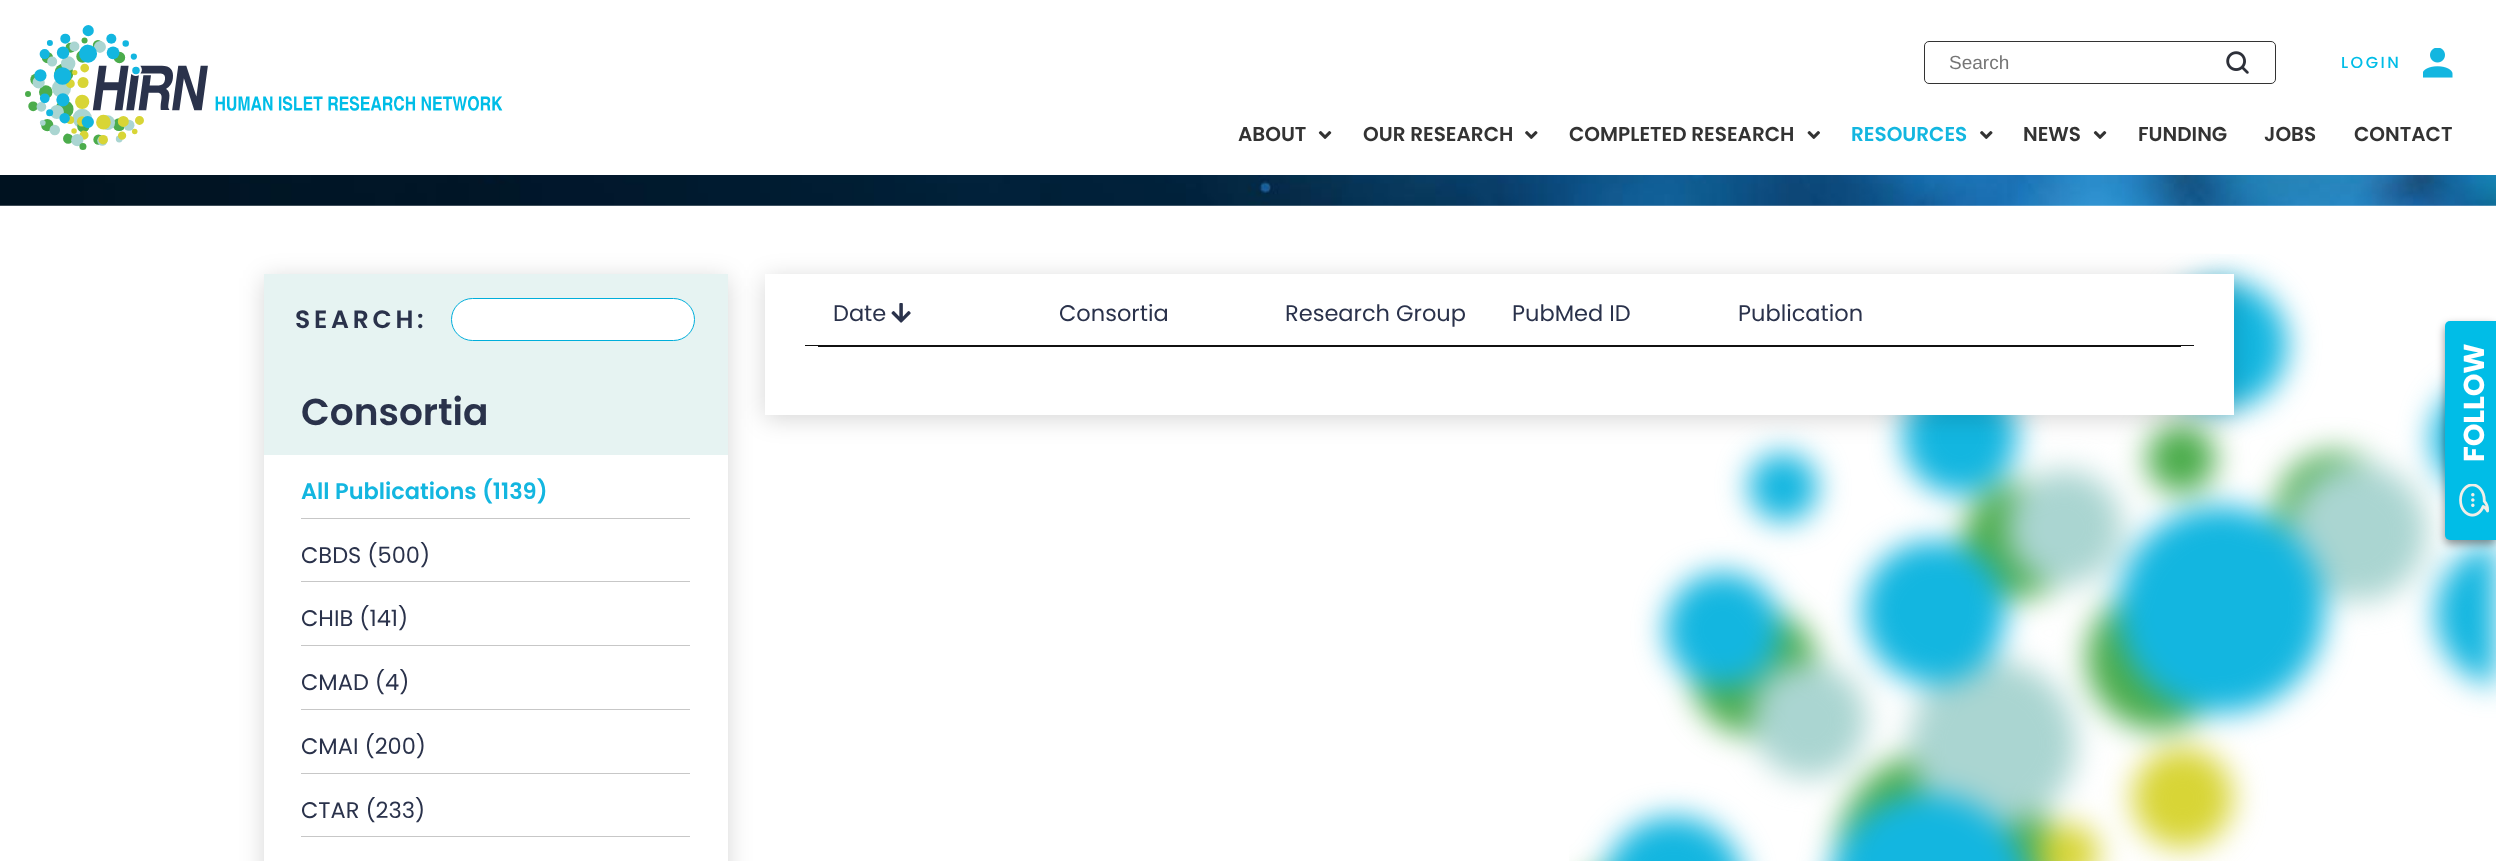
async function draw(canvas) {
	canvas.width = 2496;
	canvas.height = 861;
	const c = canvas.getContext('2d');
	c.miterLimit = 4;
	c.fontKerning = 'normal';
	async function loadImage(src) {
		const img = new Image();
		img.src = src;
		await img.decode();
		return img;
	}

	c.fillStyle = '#fff';
	c.fillRect(0, 0, 2496, 861);
	c.drawImage(await loadImage('img1.png'), 25, 25, 478, 125);
	c.beginPath();
	c.roundRect(1924.5, 41.5, 351, 42, 4.5);
	c.strokeStyle = '#333';
	c.stroke();
	c.font = '19px Liberation Sans';
	c.fillStyle = '#757575';
	c.fillText('Search', 1949, 69);
	c.drawImage(await loadImage('img2.png'), 2226, 51, 23, 23);
	c.drawImage(await loadImage('img3.png'), 2423, 48, 30, 30);
	c.letterSpacing = '2.5px';
	c.font = '500 16px Poppins';
	c.fillStyle = '#00bde7';
	c.fillText('LOGIN', 2341, 68);
	c.letterSpacing = '0px';
	c.font = '600 20px Poppins';
	c.fillStyle = '#333';
	c.fillText('ABOUT', 1238, 141);
	c.drawImage(await loadImage('img4.png'), 1318, 131, 14, 8);
	c.fillText('OUR RESEARCH', 1363, 141);
	c.drawImage(await loadImage('img5.png'), 1525, 131, 13, 8);
	c.fillText('COMPLETED RESEARCH', 1569, 141);
	c.drawImage(await loadImage('img6.png'), 1807, 131, 13, 8);
	c.fillStyle = '#13b6e0';
	c.fillText('RESOURCES', 1851, 141);
	c.drawImage(await loadImage('img5.png'), 1980, 131, 13, 8);
	c.fillStyle = '#333';
	c.fillText('NEWS', 2023, 141);
	c.drawImage(await loadImage('img4.png'), 2093, 131, 14, 8);
	for (const [text, x, y] of [
		['FUNDING', 2138, 141],
		['JOBS', 2264, 141],
		['CONTACT', 2354, 141],
	]) {
		c.fillText(text, x, y);
	}
	c.drawImage(await loadImage('img7.png'), 0, 175, 2496, 31);
	c.fillStyle = '#00000029';
	c.filter = 'blur(12.5px)';
	c.beginPath();
	c.rect(264, 278, 464, 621);
	c.fill();
	c.filter = 'none';
	c.fillStyle = '#fff';
	c.fillRect(264, 455, 464, 406);
	c.fillStyle = '#e6f3f2';
	c.fillRect(264, 274, 464, 181);
	c.letterSpacing = '3.75px';
	c.font = '600 25px Poppins';
	c.fillStyle = '#2a324b';
	c.fillText('SEARCH:', 295, 328);
	c.fillStyle = '#fff';
	c.beginPath();
	c.roundRect(451.5, 298.5, 243, 42, 21);
	c.fill();
	c.strokeStyle = '#00aedb';
	c.stroke();
	c.letterSpacing = '0px';
	c.font = '600 37.5px Poppins';
	c.fillStyle = '#2a324b';
	c.fillText('Consortia', 301, 425);
	c.font = '600 22.5px Poppins';
	c.fillStyle = '#13b6e0';
	c.fillText('All Publications (1139)', 301, 499);
	c.fillStyle = '#c7c7c7';
	c.fillRect(301, 518, 389, 1);
	c.font = '22.5px Poppins';
	c.fillStyle = '#2a324b';
	c.fillText('CBDS (500)', 301, 563);
	c.fillStyle = '#c7c7c7';
	c.fillRect(301, 581, 389, 1);
	c.fillStyle = '#2a324b';
	c.fillText('CHIB (141)', 301, 626);
	c.fillStyle = '#c7c7c7';
	c.fillRect(301, 645, 389, 1);
	c.fillStyle = '#2a324b';
	c.fillText('CMAD (4)', 301, 690);
	c.fillStyle = '#c7c7c7';
	c.fillRect(301, 709, 389, 1);
	c.fillStyle = '#2a324b';
	c.fillText('CMAI (200)', 301, 754);
	c.fillStyle = '#c7c7c7';
	c.fillRect(301, 773, 389, 1);
	c.fillStyle = '#2a324b';
	c.fillText('CTAR (233)', 301, 818);
	c.fillStyle = '#c7c7c7';
	c.fillRect(301, 836, 389, 1);
	c.drawImage(await loadImage('img10.png'), 1569, 254, 927, 607);
	c.fillStyle = '#00000029';
	c.filter = 'blur(12.5px)';
	c.beginPath();
	c.rect(765, 278, 1469, 141);
	c.fill();
	c.filter = 'none';
	c.fillStyle = '#fff';
	c.fillRect(765, 274, 1469, 141);
	c.fillStyle = '#111';
	c.fillRect(805, 345, 1389, 1);
	c.fillStyle = '#2a324b';
	c.fillText('Date', 833, 321);
	c.drawImage(await loadImage('img8.png'), 891, 303, 20, 20);
	for (const [text, x, y] of [
		['Consortia', 1059, 321],
		['Research Group', 1285, 321],
		['PubMed ID', 1512, 321],
		['Publication', 1738, 321],
	]) {
		c.fillText(text, x, y);
	}
	c.fillStyle = '#111';
	c.fillRect(818, 346, 1363, 1);
	c.fillStyle = '#0000006e';
	c.filter = 'blur(4px)';
	c.beginPath();
	c.roundRect(2445, 325, 51, 219, 5);
	c.fill();
	c.filter = 'none';
	c.fillStyle = '#00bde7';
	c.beginPath();
	c.roundRect(2445, 321, 51, 219, [5, 0, 0, 5]);
	c.fill();
	c.font = 'bold 28.75px Poppins';
	c.fillStyle = '#fff';
	c.save();
	c.translate(2484, 462);
	c.rotate(-90 * Math.PI / 180);
	c.fillText('FOLLOW', 0, 0);
	c.restore();
	c.drawImage(await loadImage('img9.png'), 2459, 483, 30, 34);
}

draw(document.querySelector('canvas'));
